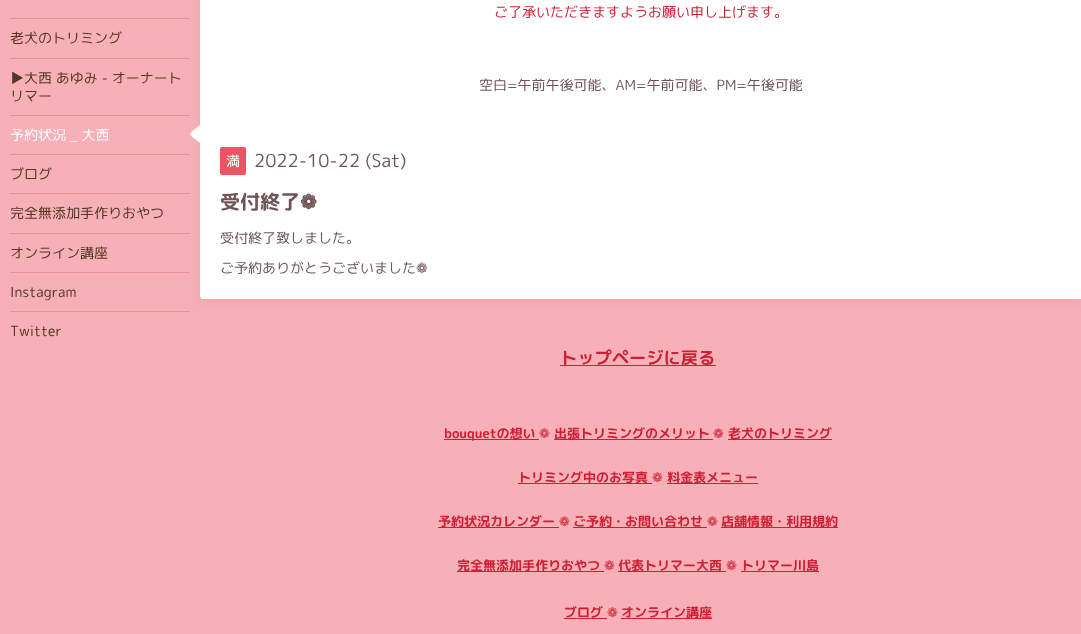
async function draw(canvas) {
	canvas.width = 1081;
	canvas.height = 634;
	const c = canvas.getContext('2d');
	c.miterLimit = 4;
	c.fontKerning = 'none';
	async function loadImage(src) {
		const img = new Image();
		img.src = src;
		await img.decode();
		return img;
	}

	c.fillStyle = '#f7b0b8';
	c.fillRect(0, 0, 1081, 634);
	c.fillStyle = '#f38b9766';
	c.filter = 'blur(5px)';
	c.beginPath();
	c.roundRect(200, -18, 881, 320, 3);
	c.fill();
	c.filter = 'none';
	c.fillStyle = '#ee919c';
	c.fillRect(10, 18, 180, 1);
	c.font = '14px "Rounded Mplus 1c"';
	c.fillStyle = '#553622';
	c.fillText('老犬のトリミング', 10, 43);
	c.fillStyle = '#ee919c';
	c.fillRect(10, 58, 180, 1);
	c.fillStyle = '#553622';
	c.fillText('▶大西 あゆみ - オーナート', 10, 83);
	c.fillText('リマー', 10, 101);
	c.drawImage(await loadImage('img1.png'), 189, 125, 11, 18);
	c.fillStyle = '#ee919c';
	c.fillRect(10, 115, 180, 1);
	c.fillStyle = '#fff';
	c.fillText('予約状況 _ 大西', 10, 140);
	c.fillStyle = '#ee919c';
	c.fillRect(10, 154, 180, 1);
	c.fillStyle = '#553622';
	c.fillText('ブログ', 10, 179);
	c.fillStyle = '#ee919c';
	c.fillRect(10, 193, 180, 1);
	c.fillStyle = '#553622';
	c.fillText('完全無添加手作りおやつ', 10, 218);
	c.fillStyle = '#ee919c';
	c.fillRect(10, 233, 180, 1);
	c.fillStyle = '#553622';
	c.fillText('オンライン講座', 10, 258);
	c.fillStyle = '#ee919c';
	c.fillRect(10, 272, 180, 1);
	c.fillStyle = '#553622';
	c.fillText('Instagram', 10, 297);
	c.fillStyle = '#ee919c';
	c.fillRect(10, 311, 180, 1);
	c.fillStyle = '#553622';
	c.fillText('Twitter', 10, 336);
	c.fillStyle = '#fff';
	c.beginPath();
	c.moveTo(203, -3);
	c.lineTo(1081, -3);
	c.lineTo(1081, 299);
	c.lineTo(203, 299);
	c.bezierCurveTo(201.5, 299, 200, 297.5, 200, 296);
	c.lineTo(200, 0);
	c.bezierCurveTo(200, -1.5, 201.5, -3, 203, -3);
	c.closePath();
	c.fill();
	c.fillStyle = '#ce2034';
	c.fillText('ご了承いただきますようお願い申し上げます。', 494, 17);
	c.fillStyle = '#6f5557';
	c.fillText('空白=午前午後可能、AM=午前可能、PM=午後可能', 479, 90);
	c.fillStyle = '#ee5365';
	c.beginPath();
	c.roundRect(220, 147, 26, 28, 2);
	c.fill();
	c.fillStyle = '#fff';
	c.fillText('満', 226, 166);
	c.font = '18px "Rounded Mplus 1c"';
	c.fillStyle = '#6f5557';
	c.fillText('2022-10-22 (Sat)', 254, 167);
	c.font = 'bold 20px "Rounded Mplus 1c Bold"';
	c.fillText('受付終了', 220, 209);
	c.font = 'bold 20px DejaVu Sans';
	c.fillText('❁', 300, 209);
	c.font = '14px "Rounded Mplus 1c"';
	c.fillText('受付終了致しました。', 220, 243);
	c.fillText('ご予約ありがとうございました', 220, 273);
	c.font = '14px DejaVu Sans';
	c.fillText('❁', 416, 273);
	c.fillStyle = '#ce2034';
	c.fillRect(560, 365, 156, 1);
	c.font = 'bold 17.25px "Rounded Mplus 1c Bold"';
	c.fillText('トップページに戻る', 560, 364);
	c.fillRect(444, 439, 95, 1);
	c.font = 'bold 13px "Rounded Mplus 1c Bold"';
	c.fillText('bouquetの想い', 444, 438);
	c.font = '13px DejaVu Sans';
	c.fillText('❁', 539, 438);
	c.fillRect(554, 439, 159, 1);
	c.font = 'bold 13px "Rounded Mplus 1c Bold"';
	c.fillText('出張トリミングのメリット', 554, 438);
	c.font = '13px DejaVu Sans';
	c.fillText('❁', 713, 438);
	c.fillRect(728, 439, 104, 1);
	c.font = 'bold 13px "Rounded Mplus 1c Bold"';
	c.fillText('老犬のトリミング', 728, 438);
	c.fillRect(518, 483, 134, 1);
	c.fillText('トリミング中のお写真', 518, 482);
	c.font = '13px DejaVu Sans';
	c.fillText('❁', 652, 482);
	c.fillRect(667, 483, 91, 1);
	c.font = 'bold 13px "Rounded Mplus 1c Bold"';
	c.fillText('料金表メニュー', 667, 482);
	c.fillRect(438, 527, 121, 1);
	c.fillText('予約状況カレンダー', 438, 526);
	c.font = '13px DejaVu Sans';
	c.fillText('❁', 559, 526);
	c.fillRect(573, 527, 134, 1);
	c.font = 'bold 13px "Rounded Mplus 1c Bold"';
	c.fillText('ご予約・お問い合わせ', 573, 526);
	c.font = '13px DejaVu Sans';
	c.fillText('❁', 707, 526);
	c.fillRect(721, 527, 117, 1);
	c.font = 'bold 13px "Rounded Mplus 1c Bold"';
	c.fillText('店舗情報・利用規約', 721, 526);
	c.fillRect(457, 571, 147, 1);
	c.fillText('完全無添加手作りおやつ', 457, 570);
	c.font = '13px DejaVu Sans';
	c.fillText('❁', 604, 570);
	c.fillRect(618, 571, 108, 1);
	c.font = 'bold 13px "Rounded Mplus 1c Bold"';
	c.fillText('代表トリマー大西', 618, 570);
	c.font = '13px DejaVu Sans';
	c.fillText('❁', 726, 570);
	c.fillRect(741, 571, 78, 1);
	c.font = 'bold 13px "Rounded Mplus 1c Bold"';
	c.fillText('トリマー川島', 741, 570);
	c.fillText('ブログ', 564, 617);
	c.fillRect(564, 618, 43, 1);
	c.font = '13px DejaVu Sans';
	c.fillText('❁', 607, 617);
	c.fillRect(621, 618, 91, 1);
	c.font = 'bold 13px "Rounded Mplus 1c Bold"';
	c.fillText('オンライン講座', 621, 617);
}

draw(document.querySelector('canvas'));
